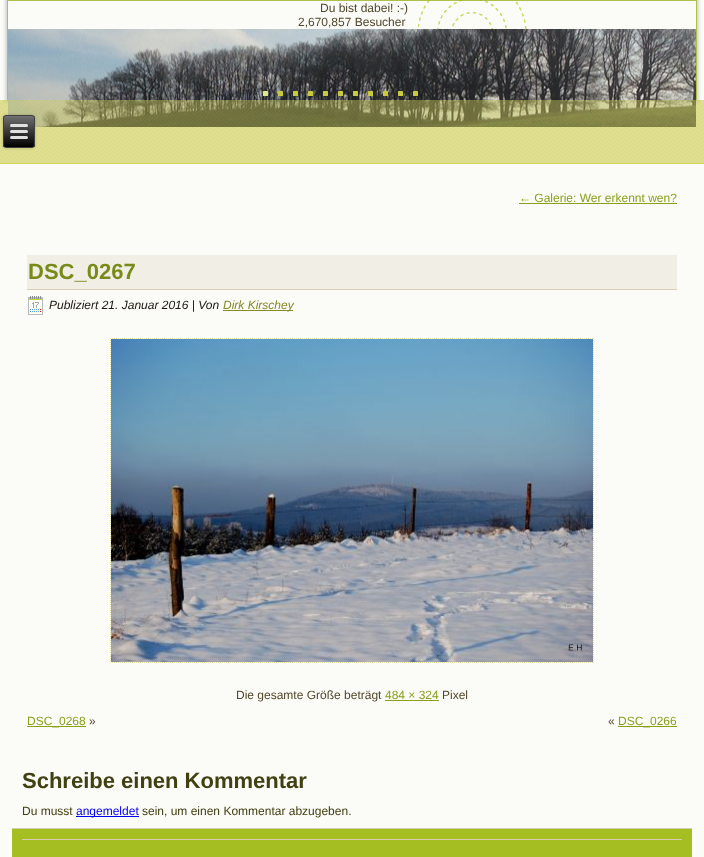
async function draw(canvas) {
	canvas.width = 704;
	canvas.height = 857;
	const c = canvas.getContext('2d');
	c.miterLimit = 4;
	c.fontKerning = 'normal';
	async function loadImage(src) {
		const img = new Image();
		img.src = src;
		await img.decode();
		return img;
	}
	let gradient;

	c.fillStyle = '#fbfbf8';
	c.fillRect(0, 0, 704, 857);
	c.drawImage(await loadImage('img1.png'), 417, 0, 110, 29);
	c.fillStyle = '#ebebbb';
	c.fillRect(0, 100, 704, 63);
	c.drawImage(await loadImage('img3.png'), 0, 100, 704, 63);
	c.save();
	c.beginPath();
	c.moveTo(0, 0);
	c.lineTo(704, 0);
	c.lineTo(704, 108);
	c.lineTo(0, 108);
	c.closePath();
	c.moveTo(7, 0);
	c.lineTo(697, 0);
	c.lineTo(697, 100);
	c.lineTo(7, 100);
	c.closePath();
	c.clip('evenodd');
	c.fillStyle = '#00000026';
	c.filter = 'blur(1.5px)';
	c.beginPath();
	c.rect(5, -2, 694, 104);
	c.fill();
	c.filter = 'none';
	c.restore();
	c.strokeStyle = '#99b21fcc';
	c.strokeRect(7.5, 0.5, 689, 99);
	c.font = '12px Liberation Sans';
	c.fillStyle = '#50462b';
	c.fillText('Du bist dabei! :-)', 320, 12);
	c.fillText('2,670,857 Besucher', 298, 26);
	c.drawImage(await loadImage('img2.png'), 8, 29, 688, 98);
	c.fillStyle = '#dceb8e';
	c.beginPath();
	c.roundRect(263, 91, 5, 5, 0.5);
	c.fill();
	c.fillStyle = '#caca3f';
	c.beginPath();
	c.roundRect(278, 91, 5, 5, 0.5);
	c.fill();
	c.beginPath();
	c.roundRect(293, 91, 5, 5, 0.5);
	c.fill();
	c.beginPath();
	c.roundRect(308, 91, 5, 5, 0.5);
	c.fill();
	c.beginPath();
	c.roundRect(323, 91, 5, 5, 0.5);
	c.fill();
	c.beginPath();
	c.roundRect(338, 91, 5, 5, 0.5);
	c.fill();
	c.beginPath();
	c.roundRect(353, 91, 5, 5, 0.5);
	c.fill();
	c.beginPath();
	c.roundRect(368, 91, 5, 5, 0.5);
	c.fill();
	c.beginPath();
	c.roundRect(383, 91, 5, 5, 0.5);
	c.fill();
	c.beginPath();
	c.roundRect(398, 91, 5, 5, 0.5);
	c.fill();
	c.beginPath();
	c.roundRect(413, 91, 5, 5, 0.5);
	c.fill();
	c.fillStyle = '#d3d35f';
	c.fillRect(0, 163, 704, 1);
	c.fillStyle = '#d3d35f66';
	c.fillRect(0, 100, 704, 63);
	c.drawImage(await loadImage('img4.png'), 0, 100, 704, 63);
	c.fillStyle = '#00000033';
	c.filter = 'blur(1.5px)';
	c.beginPath();
	c.roundRect(3, 115, 32, 33, 3);
	c.fill();
	c.filter = 'none';
	c.save();
	c.beginPath();
	c.roundRect(3, 115, 32, 33, 3);
	c.clip();
	gradient = c.createLinearGradient(19, 116, 19, 147);
	gradient.addColorStop(0, '#707070');
	gradient.addColorStop(1, '#000');
	c.fillStyle = gradient;
	c.fillRect(3, 116, 32, 31);
	c.restore();
	c.beginPath();
	c.roundRect(3.5, 115.5, 31, 32, 2.5);
	c.strokeStyle = '#404040';
	c.stroke();
	c.fillStyle = '#e0e0e0';
	c.beginPath();
	c.roundRect(10, 124, 18, 3, 1.5);
	c.fill();
	c.beginPath();
	c.roundRect(10, 130, 18, 3, 1.5);
	c.fill();
	c.beginPath();
	c.roundRect(10, 136, 18, 3, 1.5);
	c.fill();
	c.fillStyle = '#8aa01c';
	c.fillText('← Galerie: Wer erkennt wen?', 519, 202);
	for (const [x, y, w, h, color] of [
		[519, 203, 158, 1, '#8aa01c'],
		[27, 255, 650, 34, '#f1eee6'],
		[27, 289, 650, 1, '#d6cdb3'],
	]) {
		c.fillStyle = color;
		c.fillRect(x, y, w, h);
	}
	c.font = 'bold 22px Liberation Sans';
	c.fillStyle = '#788b18';
	c.fillText('DSC_0267', 28, 279);
	c.drawImage(await loadImage('img5.png'), 28, 296, 15, 19);
	c.font = 'italic 12px Liberation Sans';
	c.fillStyle = '#1b170e';
	c.fillText('Publiziert 21. Januar 2016 | Von', 49, 309);
	c.fillStyle = '#888825';
	c.fillRect(223, 310, 70, 1);
	c.fillText('Dirk Kirschey', 223, 309);
	c.beginPath();
	c.moveTo(110, 338.5);
	c.lineTo(594, 338.5);
	c.strokeStyle = '#e5e59f';
	c.setLineDash([1, 1]);
	c.stroke();
	c.beginPath();
	c.moveTo(110, 662.5);
	c.lineTo(594, 662.5);
	c.stroke();
	c.beginPath();
	c.moveTo(110.5, 338);
	c.lineTo(110.5, 663);
	c.stroke();
	c.drawImage(await loadImage('img6.png'), 111, 339, 482, 323);
	c.beginPath();
	c.moveTo(593.5, 338);
	c.lineTo(593.5, 663);
	c.stroke();
	c.font = '12px Liberation Sans';
	c.fillStyle = '#50462b';
	c.fillText('Die gesamte Größe beträgt', 236, 699);
	c.fillStyle = '#8aa01c';
	c.fillText('484 × 324', 385, 699);
	c.fillRect(385, 700, 54, 1);
	c.fillStyle = '#50462b';
	c.fillText('Pixel', 442, 699);
	c.fillStyle = '#8aa01c';
	c.fillRect(27, 726, 59, 1);
	c.fillText('DSC_0268', 27, 725);
	c.fillStyle = '#50462b';
	c.fillText('»', 89, 725);
	c.fillText('«', 608, 725);
	c.fillStyle = '#8aa01c';
	c.fillRect(618, 726, 59, 1);
	c.fillText('DSC_0266', 618, 725);
	c.font = 'bold 22px Liberation Sans';
	c.fillStyle = '#404012';
	c.fillText('Schreibe einen Kommentar', 22, 788);
	c.font = '12px Liberation Sans';
	c.fillText('Du musst', 22, 815);
	c.fillStyle = '#00e';
	c.fillRect(76, 816, 63, 1);
	c.fillText('angemeldet', 76, 815);
	c.fillStyle = '#404012';
	c.fillText('sein, um einen Kommentar abzugeben.', 142, 815);
	for (const [x, y, w, h, color] of [
		[12, 829, 680, 28, '#a5bf22'],
		[12, 828, 680, 1, '#d6cdb3'],
		[22, 839, 660, 1, '#d6cdb3'],
	]) {
		c.fillStyle = color;
		c.fillRect(x, y, w, h);
	}
}

draw(document.querySelector('canvas'));
